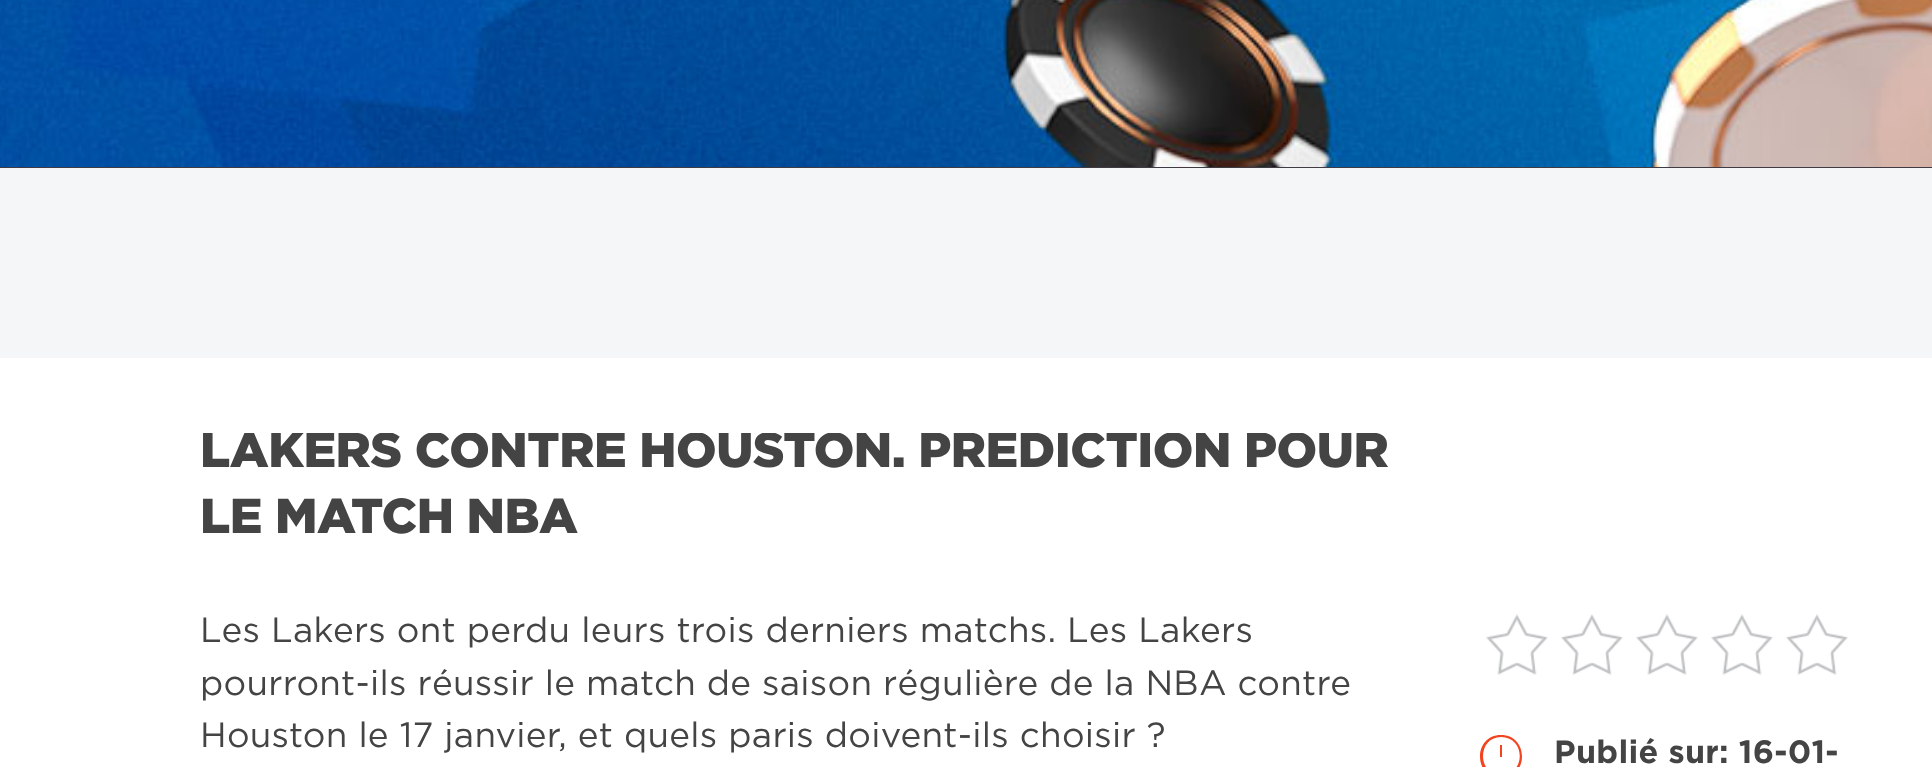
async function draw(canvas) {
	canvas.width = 1932;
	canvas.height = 767;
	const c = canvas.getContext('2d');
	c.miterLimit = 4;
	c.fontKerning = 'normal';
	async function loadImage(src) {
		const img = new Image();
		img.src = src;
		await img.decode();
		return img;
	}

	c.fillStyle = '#fff';
	c.fillRect(0, 0, 1932, 767);
	c.fillStyle = '#403a43';
	c.fillRect(0, 167, 1932, 1);
	c.drawImage(await loadImage('img1.png'), 0, 0, 1932, 167);
	c.fillStyle = '#f4f6f7';
	c.fillRect(0, 168, 1932, 190);
	c.save();
	c.beginPath();
	c.rect(50, 433, 1355, 122);
	c.clip();
	c.letterSpacing = '-0.5px';
	c.font = '900 49px Gotham';
	c.fillStyle = '#444';
	c.fillText('LAKERS CONTRE HOUSTON. PRÉDICTION POUR', 200, 467);
	c.restore();
	c.letterSpacing = '-0.5px';
	c.font = '900 49px Gotham';
	c.fillStyle = '#444';
	c.fillText('LE MATCH NBA', 200, 533);
	c.letterSpacing = '0.28px';
	c.font = '35px Gotham';
	for (const [text, x, y] of [
		['Les Lakers ont perdu leurs trois derniers matchs. Les Lakers', 200, 642],
		['pourront-ils réussir le match de saison régulière de la NBA contre', 200, 695],
		['Houston le 17 janvier, et quels paris doivent-ils choisir ?', 200, 747],
	]) {
		c.fillText(text, x, y);
	}
	c.drawImage(await loadImage('img2.png'), 1486, 614, 362, 61);
	c.fillStyle = '#f1441f';
	c.beginPath();
	c.moveTo(1501, 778);
	c.bezierCurveTo(1473, 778, 1473, 735, 1501, 735);
	c.bezierCurveTo(1529, 735, 1529, 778, 1501, 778);
	c.closePath();
	c.moveTo(1501, 737);
	c.bezierCurveTo(1477, 737, 1477, 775, 1501, 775);
	c.bezierCurveTo(1526, 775, 1526, 737, 1501, 737);
	c.closePath();
	c.moveTo(1500, 745);
	c.lineTo(1502, 745);
	c.lineTo(1502, 757);
	c.lineTo(1500, 757);
	c.closePath();
	c.fill();
	c.font = 'bold 32.25px Gotham';
	c.fillStyle = '#444';
	c.fillText('Publié sur: 16-01-', 1554, 763);
}

draw(document.querySelector('canvas'));
